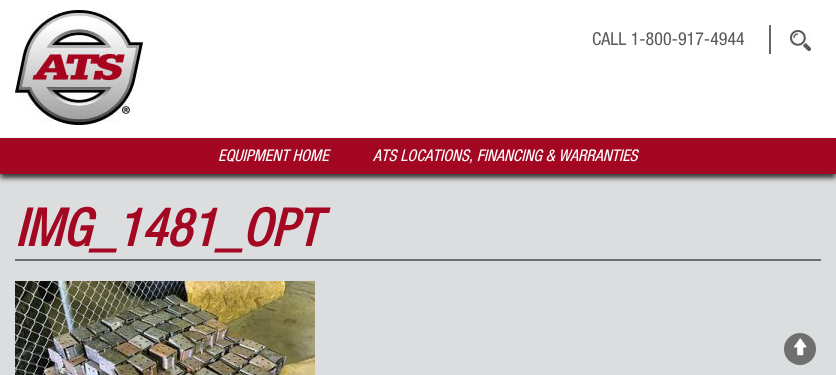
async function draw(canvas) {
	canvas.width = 836;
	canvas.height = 375;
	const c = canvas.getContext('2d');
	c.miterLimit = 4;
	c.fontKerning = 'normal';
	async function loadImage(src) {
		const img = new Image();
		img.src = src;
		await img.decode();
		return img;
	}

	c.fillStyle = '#fff';
	c.fillRect(0, 0, 836, 375);
	c.drawImage(await loadImage('img1.png'), 15, 10, 128, 115);
	c.font = '18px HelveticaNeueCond';
	c.fillStyle = '#58595b';
	c.fillText('CALL 1-800-917-4944', 592, 45);
	c.fillStyle = '#666';
	c.fillRect(769, 25, 2, 29);
	c.drawImage(await loadImage('img2.png'), 789, 30, 22, 21);
	c.fillStyle = '#dcddde';
	c.fillRect(0, 174, 836, 201);
	c.fillStyle = '#000000bf';
	c.filter = 'blur(2.5px)';
	c.beginPath();
	c.rect(0, 142, 836, 36);
	c.fill();
	c.filter = 'none';
	c.fillStyle = '#a30722';
	c.fillRect(0, 138, 836, 36);
	c.font = 'italic 16px HelveticaNeueCond';
	c.fillStyle = '#fff';
	c.fillText('EQUIPMENT HOME', 218, 161);
	c.fillText('ATS LOCATIONS, FINANCING & WARRANTIES', 373, 161);
	c.fillStyle = '#6d6f71';
	c.fillRect(15, 259, 806, 2);
	c.font = 'italic bold 52px HelveticaNeueCond';
	c.fillStyle = '#a30722';
	c.fillText('IMG_1481_OPT', 15, 246);
	c.drawImage(await loadImage('img3.png'), 15, 281, 300, 94);
	c.fillStyle = '#6e6f6f';
	c.beginPath();
	c.arc(800, 349, 16, 0, 2 * Math.PI);
	c.fill();
	c.drawImage(await loadImage('img4.png'), 794, 338, 13, 18);
}

draw(document.querySelector('canvas'));
